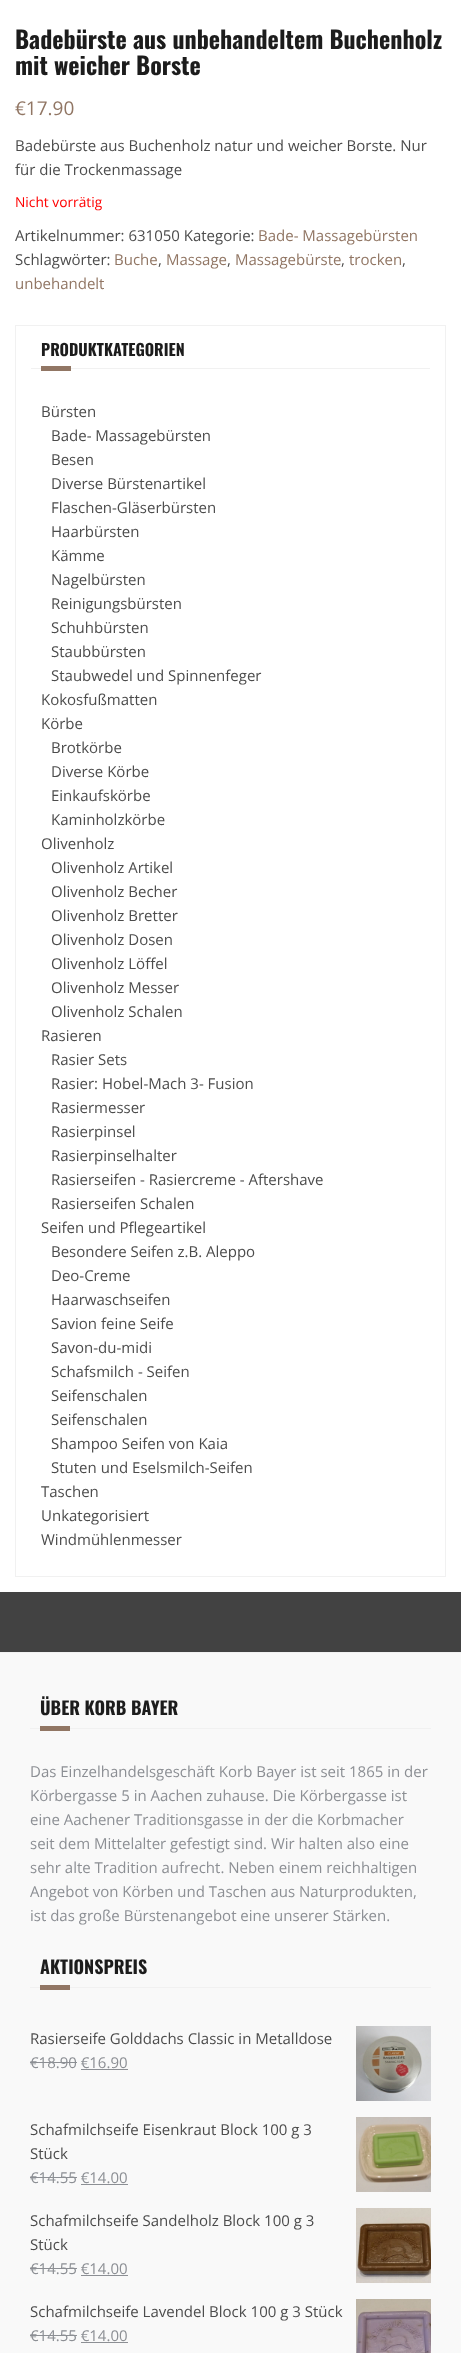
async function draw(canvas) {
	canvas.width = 461;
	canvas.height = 2353;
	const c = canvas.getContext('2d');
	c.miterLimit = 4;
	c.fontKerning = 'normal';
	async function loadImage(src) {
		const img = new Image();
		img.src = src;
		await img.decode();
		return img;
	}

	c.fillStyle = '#424242';
	c.fillRect(0, 0, 461, 2353);
	c.fillStyle = '#fff';
	c.fillRect(0, 0, 461, 1592);
	c.font = 'bold 24px Oswald';
	c.fillStyle = '#1c1c1c';
	c.fillText('Badebürste aus unbehandeltem Buchenholz', 15, 49);
	c.fillText('mit weicher Borste', 15, 75);
	c.font = '19px Open Sans';
	c.fillStyle = '#917664';
	c.fillText('€17.90', 15, 115);
	c.font = '15px Open Sans';
	c.fillStyle = '#4c4c4c';
	c.fillText('Badebürste aus Buchenholz natur und weicher Borste. Nur', 15, 151);
	c.fillText('für die Trockenmassage', 15, 175);
	c.font = '13.75px Open Sans';
	c.fillStyle = '#f00';
	c.fillText('Nicht vorrätig', 15, 207);
	c.font = '15px Open Sans';
	c.fillStyle = '#4c4c4c';
	c.fillText('Artikelnummer: 631050 Kategorie:', 15, 241);
	c.fillStyle = '#917664';
	c.fillText('Bade- Massagebürsten', 258, 241);
	c.fillStyle = '#4c4c4c';
	c.fillText('Schlagwörter:', 15, 265);
	c.fillStyle = '#917664';
	c.fillText('Buche', 114, 265);
	c.fillStyle = '#4c4c4c';
	c.fillText(',', 158, 265);
	c.fillStyle = '#917664';
	c.fillText('Massage', 166, 265);
	c.fillStyle = '#4c4c4c';
	c.fillText(',', 227, 265);
	c.fillStyle = '#917664';
	c.fillText('Massagebürste', 235, 265);
	c.fillStyle = '#4c4c4c';
	c.fillText(',', 341, 265);
	c.fillStyle = '#917664';
	c.fillText('trocken', 349, 265);
	c.fillStyle = '#4c4c4c';
	c.fillText(',', 402, 265);
	c.fillStyle = '#917664';
	c.fillText('unbehandelt', 15, 289);
	c.strokeStyle = '#f1f1f1';
	c.strokeRect(15.5, 325.5, 430, 1251);
	c.fillStyle = '#f1f1f1';
	c.fillRect(31, 368, 399, 1);
	c.font = 'bold 16px Oswald';
	c.fillStyle = '#1c1c1c';
	c.fillText('PRODUKTKATEGORIEN', 41, 356);
	c.fillStyle = '#917664';
	c.fillRect(41, 366, 30, 5);
	c.font = '15px Open Sans';
	c.fillStyle = '#4c4c4c';
	for (const [text, x, y] of [
		['Bürsten', 41, 417],
		['Bade- Massagebürsten', 51, 441],
		['Besen', 51, 465],
		['Diverse Bürstenartikel', 51, 489],
		['Flaschen-Gläserbürsten', 51, 513],
		['Haarbürsten', 51, 537],
		['Kämme', 51, 561],
		['Nagelbürsten', 51, 585],
		['Reinigungsbürsten', 51, 609],
		['Schuhbürsten', 51, 633],
		['Staubbürsten', 51, 657],
		['Staubwedel und Spinnenfeger', 51, 681],
		['Kokosfußmatten', 41, 705],
		['Körbe', 41, 729],
		['Brotkörbe', 51, 753],
		['Diverse Körbe', 51, 777],
		['Einkaufskörbe', 51, 801],
		['Kaminholzkörbe', 51, 825],
		['Olivenholz', 41, 849],
		['Olivenholz Artikel', 51, 873],
		['Olivenholz Becher', 51, 897],
		['Olivenholz Bretter', 51, 921],
		['Olivenholz Dosen', 51, 945],
		['Olivenholz Löffel', 51, 969],
		['Olivenholz Messer', 51, 993],
		['Olivenholz Schalen', 51, 1017],
		['Rasieren', 41, 1041],
		['Rasier Sets', 51, 1065],
		['Rasier: Hobel-Mach 3- Fusion', 51, 1089],
		['Rasiermesser', 51, 1113],
		['Rasierpinsel', 51, 1137],
		['Rasierpinselhalter', 51, 1161],
		['Rasierseifen - Rasiercreme - Aftershave', 51, 1185],
		['Rasierseifen Schalen', 51, 1209],
		['Seifen und Pflegeartikel', 41, 1233],
		['Besondere Seifen z.B. Aleppo', 51, 1257],
		['Deo-Creme', 51, 1281],
		['Haarwaschseifen', 51, 1305],
		['Savion feine Seife', 51, 1329],
		['Savon-du-midi', 51, 1353],
		['Schafsmilch - Seifen', 51, 1377],
		['Seifenschalen', 51, 1401],
		['Seifenschalen', 51, 1425],
		['Shampoo Seifen von Kaia', 51, 1449],
		['Stuten und Eselsmilch-Seifen', 51, 1473],
		['Taschen', 41, 1497],
		['Unkategorisiert', 41, 1521],
		['Windmühlenmesser', 41, 1545],
	]) {
		c.fillText(text, x, y);
	}
	for (const [x, y, w, h, color] of [
		[0, 1653, 461, 700, '#f9f9f9'],
		[0, 1652, 461, 1, '#f1f1f1'],
		[30, 1728, 401, 1, '#f1f1f1'],
	]) {
		c.fillStyle = color;
		c.fillRect(x, y, w, h);
	}
	c.font = 'bold 18px Oswald';
	c.fillStyle = '#1c1c1c';
	c.fillText('ÜBER KORB BAYER', 40, 1715);
	c.fillStyle = '#917664';
	c.fillRect(40, 1726, 30, 5);
	c.font = '15px Open Sans';
	c.fillStyle = '#8c8f94';
	for (const [text, x, y] of [
		['Das Einzelhandelsgeschäft Korb Bayer ist seit 1865 in der', 30, 1777],
		['Körbergasse 5 in Aachen zuhause. Die Körbergasse ist', 30, 1801],
		['eine Aachener Traditionsgasse in der die Korbmacher', 30, 1825],
		['seit dem Mittelalter gefestigt sind. Wir halten also eine', 30, 1849],
		['sehr alte Tradition aufrecht. Neben einem reichhaltigen', 30, 1873],
		['Angebot von Körben und Taschen aus Naturprodukten,', 30, 1897],
		['ist das große Bürstenangebot eine unserer Stärken.', 30, 1921],
	]) {
		c.fillText(text, x, y);
	}
	c.fillStyle = '#f1f1f1';
	c.fillRect(30, 1987, 401, 1);
	c.font = 'bold 18px Oswald';
	c.fillStyle = '#1c1c1c';
	c.fillText('AKTIONSPREIS', 40, 1974);
	c.fillStyle = '#917664';
	c.fillRect(40, 1985, 30, 5);
	c.font = '15px Open Sans';
	c.fillStyle = '#4c4c4c';
	c.fillText('Rasierseife Golddachs Classic in Metalldose', 30, 2044);
	c.drawImage(await loadImage('img1.png'), 356, 2026, 75, 75);
	c.fillStyle = '#8c8f94';
	c.fillText('€18.90 €16.90', 30, 2068);
	c.fillRect(30, 2062, 47, 1);
	c.fillRect(81, 2069, 47, 1);
	c.fillStyle = '#4c4c4c';
	c.fillText('Schafmilchseife Eisenkraut Block 100 g 3', 30, 2135);
	c.drawImage(await loadImage('img2.png'), 356, 2117, 75, 75);
	c.fillText('Stück', 30, 2159);
	c.fillStyle = '#8c8f94';
	c.fillText('€14.55 €14.00', 30, 2183);
	c.fillRect(30, 2177, 47, 1);
	c.fillRect(81, 2184, 47, 1);
	c.fillStyle = '#4c4c4c';
	c.fillText('Schafmilchseife Sandelholz Block 100 g 3', 30, 2226);
	c.drawImage(await loadImage('img3.png'), 356, 2208, 75, 75);
	c.fillText('Stück', 30, 2250);
	c.fillStyle = '#8c8f94';
	c.fillText('€14.55 €14.00', 30, 2274);
	c.fillRect(30, 2268, 47, 1);
	c.fillRect(81, 2275, 47, 1);
	c.fillStyle = '#4c4c4c';
	c.fillText('Schafmilchseife Lavendel Block 100 g 3 Stück', 30, 2317);
	c.drawImage(await loadImage('img4.png'), 356, 2299, 75, 54);
	c.fillStyle = '#8c8f94';
	c.fillText('€14.55 €14.00', 30, 2341);
	c.fillRect(30, 2335, 47, 1);
	c.fillRect(81, 2342, 47, 1);
}

draw(document.querySelector('canvas'));
